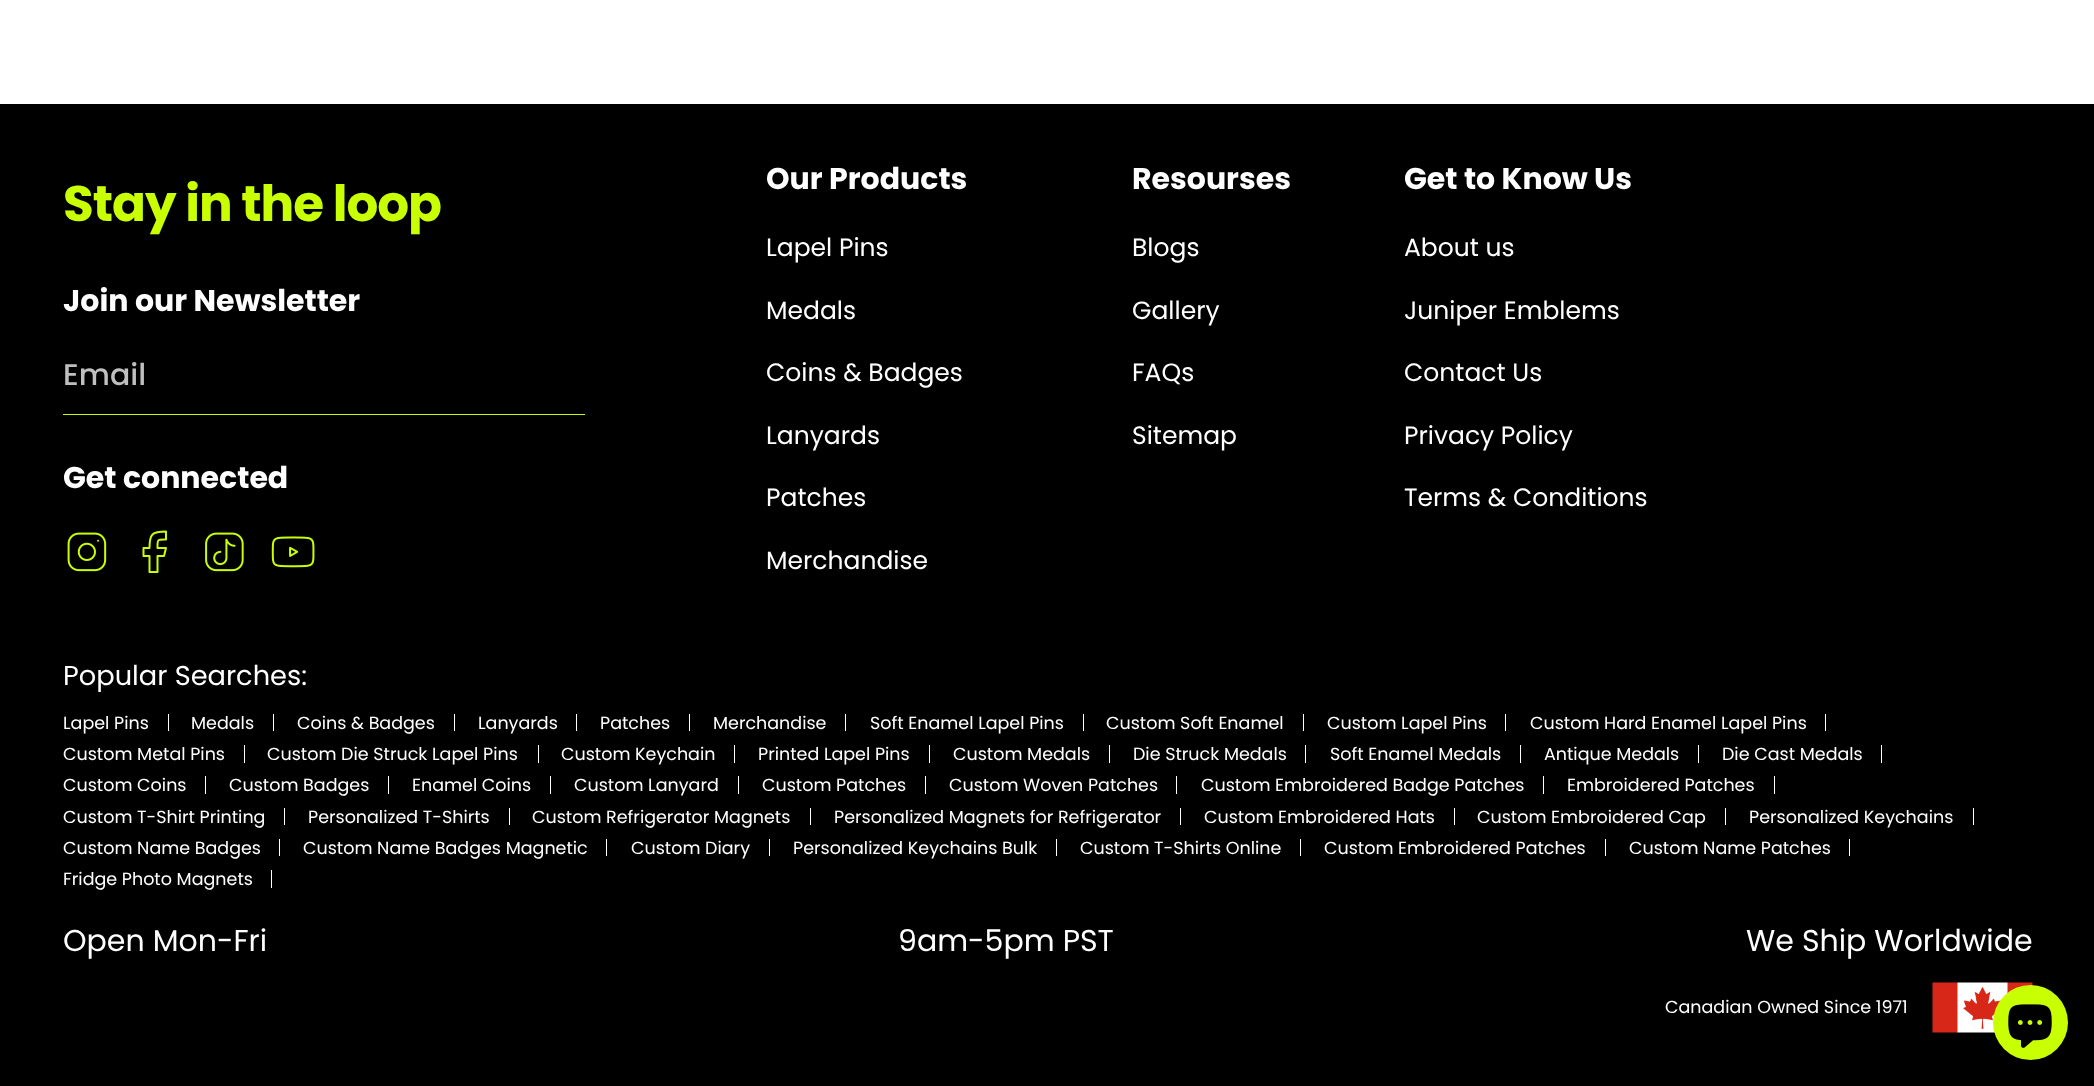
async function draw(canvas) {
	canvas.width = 2094;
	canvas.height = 1086;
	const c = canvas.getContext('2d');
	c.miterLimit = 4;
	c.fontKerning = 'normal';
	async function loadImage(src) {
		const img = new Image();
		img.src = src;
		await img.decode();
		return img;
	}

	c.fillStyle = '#fff';
	c.fillRect(0, 0, 2094, 1086);
	c.fillStyle = '#000';
	c.fillRect(0, 104, 2094, 982);
	c.letterSpacing = '-1px';
	c.font = 'bold 50px Poppins';
	c.fillStyle = '#c9ff03';
	c.fillText('Stay in the loop', 63, 221);
	c.letterSpacing = '0px';
	c.font = 'bold 30px Poppins';
	c.fillStyle = '#fff';
	c.fillText('Join our Newsletter', 63, 311);
	c.fillStyle = '#c9ff03';
	c.fillRect(63, 414, 522, 1);
	c.font = '500 30px Poppins';
	c.fillStyle = '#bfbfbf';
	c.fillText('Email', 63, 385);
	c.font = 'bold 30px Poppins';
	c.fillStyle = '#fff';
	c.fillText('Get connected', 63, 488);
	c.drawImage(await loadImage('img1.png'), 67, 532, 40, 40);
	c.beginPath();
	c.moveTo(166, 531.5);
	c.bezierCurveTo(152, 531.5, 149.5, 534, 149.5, 548);
	c.lineTo(143.5, 548);
	c.lineTo(143.5, 556);
	c.lineTo(149.5, 556);
	c.lineTo(149.5, 572);
	c.lineTo(157.5, 572);
	c.lineTo(157.5, 556);
	c.lineTo(164, 556);
	c.lineTo(166, 548);
	c.lineTo(157.5, 548);
	c.bezierCurveTo(157.5, 539, 157, 539.5, 166, 539.5);
	c.closePath();
	c.strokeStyle = '#c9ff03';
	c.lineWidth = 2;
	c.lineCap = 'round';
	c.lineJoin = 'round';
	c.stroke();
	c.drawImage(await loadImage('img2.png'), 205, 532, 39, 40);
	c.drawImage(await loadImage('img3.png'), 271, 536, 44, 32);
	c.fillText('Our Products', 766, 189);
	c.font = '25px Poppins';
	for (const [text, x, y] of [
		['Lapel Pins', 766, 256],
		['Medals', 766, 319],
		['Coins & Badges', 766, 381],
		['Lanyards', 766, 444],
		['Patches', 766, 506],
		['Merchandise', 766, 569],
	]) {
		c.fillText(text, x, y);
	}
	c.font = 'bold 30px Poppins';
	c.fillText('Resourses', 1132, 189);
	c.font = '25px Poppins';
	for (const [text, x, y] of [
		['Blogs', 1132, 256],
		['Gallery', 1132, 319],
		['FAQs', 1132, 381],
		['Sitemap', 1132, 444],
	]) {
		c.fillText(text, x, y);
	}
	c.font = 'bold 30px Poppins';
	c.fillText('Get to Know Us', 1404, 189);
	c.font = '25px Poppins';
	for (const [text, x, y] of [
		['About us', 1404, 256],
		['Juniper Emblems', 1404, 319],
		['Contact Us', 1404, 381],
		['Privacy Policy', 1404, 444],
		['Terms & Conditions', 1404, 506],
	]) {
		c.fillText(text, x, y);
	}
	c.font = '27.25px Poppins';
	c.fillText('Popular Searches:', 63, 685);
	c.font = '17.5px Poppins';
	c.fillText('Lapel Pins', 63, 729);
	c.fillRect(168, 714, 1, 17);
	c.fillText('Medals', 191, 729);
	c.fillRect(273, 714, 1, 17);
	c.fillText('Coins & Badges', 297, 729);
	c.fillRect(454, 714, 1, 17);
	c.fillText('Lanyards', 478, 729);
	c.fillRect(576, 714, 1, 17);
	c.fillText('Patches', 600, 729);
	c.fillRect(689, 714, 1, 17);
	c.fillText('Merchandise', 713, 729);
	c.fillRect(845, 714, 1, 17);
	c.fillText('Soft Enamel Lapel Pins', 870, 729);
	c.fillRect(1083, 714, 1, 17);
	c.fillText('Custom Soft Enamel', 1106, 729);
	c.fillRect(1303, 714, 1, 17);
	c.fillText('Custom Lapel Pins', 1327, 729);
	c.fillRect(1505, 714, 1, 17);
	c.fillText('Custom Hard Enamel Lapel Pins', 1530, 729);
	c.fillRect(1825, 714, 1, 17);
	c.fillText('Custom Metal Pins', 63, 760);
	c.fillRect(244, 745, 1, 18);
	c.fillText('Custom Die Struck Lapel Pins', 267, 760);
	c.fillRect(538, 745, 1, 18);
	c.fillText('Custom Keychain', 561, 760);
	c.fillRect(734, 745, 1, 18);
	c.fillText('Printed Lapel Pins', 758, 760);
	c.fillRect(929, 745, 1, 18);
	c.fillText('Custom Medals', 953, 760);
	c.fillRect(1109, 745, 1, 18);
	c.fillText('Die Struck Medals', 1133, 760);
	c.fillRect(1305, 745, 1, 18);
	c.fillText('Soft Enamel Medals', 1330, 760);
	c.fillRect(1520, 745, 1, 18);
	c.fillText('Antique Medals', 1544, 760);
	c.fillRect(1698, 745, 1, 18);
	c.fillText('Die Cast Medals', 1722, 760);
	c.fillRect(1881, 745, 1, 18);
	c.fillText('Custom Coins', 63, 791);
	c.fillRect(205, 776, 1, 18);
	c.fillText('Custom Badges', 229, 791);
	c.fillRect(388, 776, 1, 18);
	c.fillText('Enamel Coins', 412, 791);
	c.fillRect(550, 776, 1, 18);
	c.fillText('Custom Lanyard', 574, 791);
	c.fillRect(738, 776, 1, 18);
	c.fillText('Custom Patches', 762, 791);
	c.fillRect(925, 776, 1, 18);
	c.fillText('Custom Woven Patches', 949, 791);
	c.fillRect(1176, 776, 1, 18);
	c.fillText('Custom Embroidered Badge Patches', 1201, 791);
	c.fillRect(1543, 776, 1, 18);
	c.fillText('Embroidered Patches', 1567, 791);
	c.fillRect(1774, 776, 1, 18);
	c.fillText('Custom T-Shirt Printing', 63, 823);
	c.fillRect(284, 808, 1, 17);
	c.fillText('Personalized T-Shirts', 308, 823);
	c.fillRect(509, 808, 1, 17);
	c.fillText('Custom Refrigerator Magnets', 532, 823);
	c.fillRect(810, 808, 1, 17);
	c.fillText('Personalized Magnets for Refrigerator', 834, 823);
	c.fillRect(1180, 808, 1, 17);
	c.fillText('Custom Embroidered Hats', 1204, 823);
	c.fillRect(1454, 808, 1, 17);
	c.fillText('Custom Embroidered Cap', 1477, 823);
	c.fillRect(1725, 808, 1, 17);
	c.fillText('Personalized Keychains', 1749, 823);
	c.fillRect(1973, 808, 1, 17);
	c.fillText('Custom Name Badges', 63, 854);
	c.fillRect(279, 839, 1, 17);
	c.fillText('Custom Name Badges Magnetic', 303, 854);
	c.fillRect(606, 839, 1, 17);
	c.fillText('Custom Diary', 631, 854);
	c.fillRect(769, 839, 1, 17);
	c.fillText('Personalized Keychains Bulk', 793, 854);
	c.fillRect(1056, 839, 1, 17);
	c.fillText('Custom T-Shirts Online', 1080, 854);
	c.fillRect(1300, 839, 1, 17);
	c.fillText('Custom Embroidered Patches', 1324, 854);
	c.fillRect(1605, 839, 1, 17);
	c.fillText('Custom Name Patches', 1629, 854);
	c.fillRect(1849, 839, 1, 17);
	c.fillText('Fridge Photo Magnets', 63, 885);
	c.fillRect(271, 870, 1, 18);
	c.font = '30px Poppins';
	for (const [text, x, y] of [
		['Open Mon-Fri', 63, 951],
		['9am-5pm PST', 898, 951],
		['We Ship Worldwide', 1746, 951],
	]) {
		c.fillText(text, x, y);
	}
	c.font = '17.5px Poppins';
	c.fillText('Canadian Owned Since 1971', 1665, 1013);
	c.drawImage(await loadImage('img4.png'), 1932, 982, 101, 51);
	c.fillStyle = '#c9ff03';
	c.beginPath();
	c.arc(2030.5, 1022.5, 37.5, 0, 2 * Math.PI);
	c.fill();
	c.drawImage(await loadImage('img5.png'), 2008, 1004, 44, 44);
}

draw(document.querySelector('canvas'));
